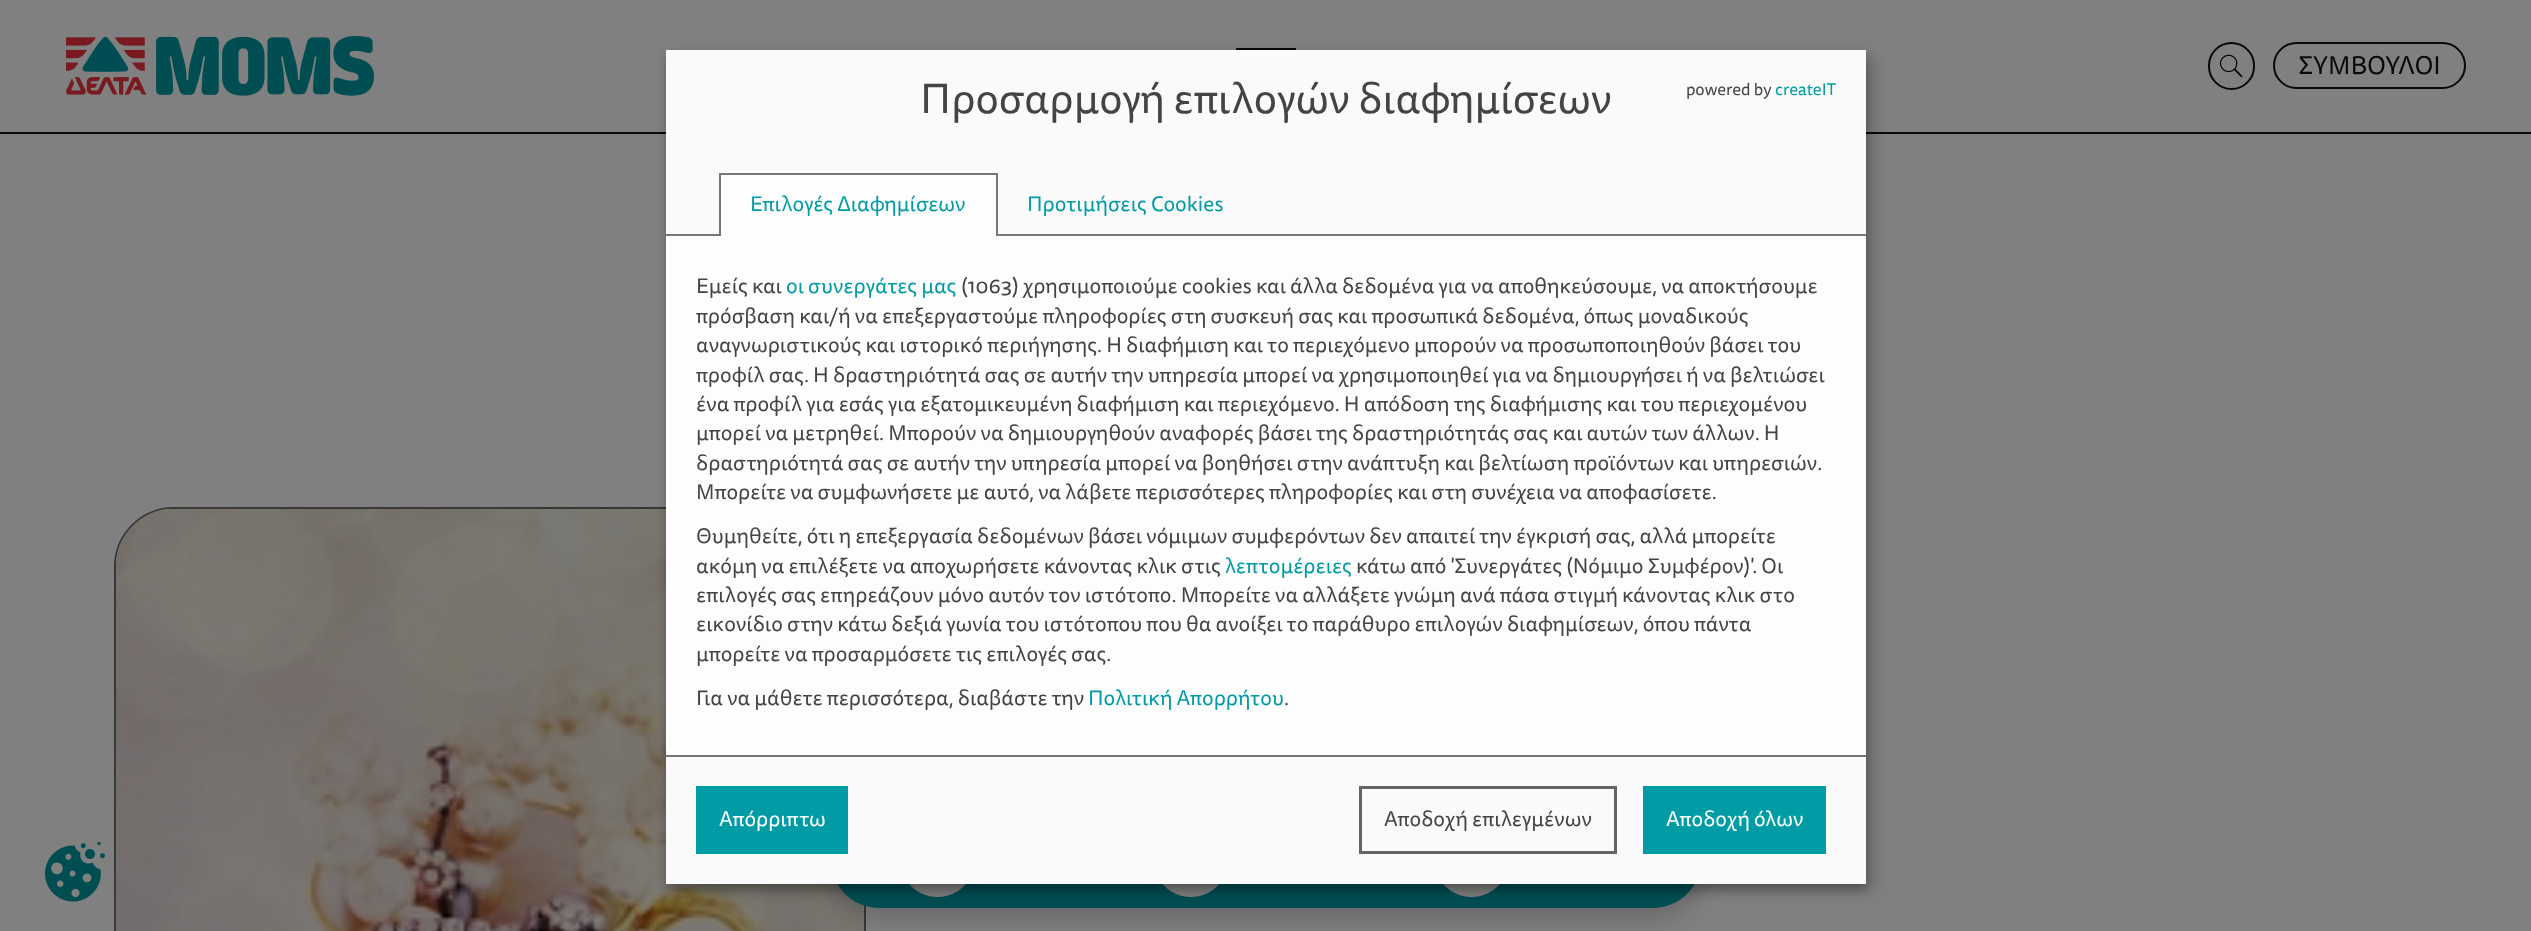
async function draw(canvas) {
	canvas.width = 2531;
	canvas.height = 931;
	const c = canvas.getContext('2d');
	c.miterLimit = 4;
	c.fontKerning = 'normal';
	async function loadImage(src) {
		const img = new Image();
		img.src = src;
		await img.decode();
		return img;
	}

	c.fillStyle = '#808080';
	c.fillRect(0, 0, 2531, 931);
	c.fillStyle = '#090909';
	c.fillRect(0, 132, 2531, 2);
	c.drawImage(await loadImage('img1.png'), 66, 36, 308, 60);
	c.fillRect(1236, 48, 60, 2);
	c.beginPath();
	c.roundRect(2209, 43, 45, 46, 22.5);
	c.strokeStyle = '#090909';
	c.lineWidth = 2;
	c.stroke();
	c.drawImage(await loadImage('img2.png'), 2220, 54, 23, 24);
	c.beginPath();
	c.roundRect(2274, 43, 191, 45, 22.5);
	c.stroke();
	c.font = '25.5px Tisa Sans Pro';
	c.fillText('ΣΥΜΒΟΥΛΟΙ', 2298, 74);
	c.beginPath();
	c.roundRect(115, 508, 750, 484, 59);
	c.strokeStyle = '#383838';
	c.stroke();
	c.drawImage(await loadImage('img3.png'), 116, 509, 748, 422);
	c.fillStyle = '#00000033';
	c.filter = 'blur(12px)';
	c.beginPath();
	c.roundRect(831, 821, 870, 96, 48);
	c.fill();
	c.filter = 'none';
	c.fillStyle = '#004e53';
	c.beginPath();
	c.roundRect(831, 812, 870, 96, 48);
	c.fill();
	c.drawImage(await loadImage('img5.png'), 909, 884, 57, 13);
	c.drawImage(await loadImage('img6.png'), 1162, 884, 58, 13);
	c.drawImage(await loadImage('img7.png'), 1443, 884, 57, 13);
	c.fillStyle = '#00000030';
	c.filter = 'blur(7.5px)';
	c.beginPath();
	c.rect(674, 57, 1200, 834);
	c.fill();
	c.filter = 'none';
	c.fillStyle = '#00000033';
	c.filter = 'blur(4.5px)';
	c.beginPath();
	c.rect(666, 56, 1200, 834);
	c.fill();
	c.filter = 'none';
	c.fillStyle = '#fafafa';
	c.fillRect(666, 50, 1200, 834);
	c.font = '42px Tisa Sans Pro';
	c.fillStyle = '#444';
	c.fillText('Προσαρμογή επιλογών διαφημίσεων', 920, 113);
	c.fillStyle = '#777';
	c.fillRect(666, 755, 1200, 2);
	c.font = '16.75px Tisa Sans Pro';
	c.fillStyle = '#444';
	c.fillText('powered by', 1686, 95);
	c.fillStyle = '#009ca6';
	c.fillText('createIT', 1775, 95);
	c.fillRect(696, 786, 152, 68);
	c.font = '21px Tisa Sans Pro';
	c.fillStyle = '#fff';
	c.fillText('Απόρριπτω', 719, 826);
	c.strokeStyle = '#646464';
	c.lineWidth = 3;
	c.strokeRect(1360.5, 787.5, 255, 65);
	c.fillStyle = '#444';
	c.fillText('Αποδοχή επιλεγμένων', 1384, 826);
	c.fillStyle = '#009ca6';
	c.fillRect(1643, 786, 183, 68);
	c.fillStyle = '#fff';
	c.fillText('Αποδοχή όλων', 1666, 826);
	for (const [x, y, w, h, color] of [
		[666, 234, 1200, 2, '#777'],
		[721, 175, 275, 61, '#fdfdfd'],
		[719, 173, 279, 2, '#777'],
		[996, 173, 2, 64, '#777'],
		[719, 173, 2, 64, '#777'],
	]) {
		c.fillStyle = color;
		c.fillRect(x, y, w, h);
	}
	c.fillStyle = '#009ca6';
	c.fillText('Επιλογές Διαφημίσεων', 750, 211);
	c.fillText('Προτιμήσεις Cookies', 1027, 211);
	c.fillStyle = '#fdfdfd';
	c.fillRect(666, 236, 1200, 519);
	c.fillStyle = '#444';
	c.fillText('Εμείς και', 696, 293);
	c.fillStyle = '#009ca6';
	c.fillText('οι συνεργάτες μας', 786, 293);
	c.fillStyle = '#444';
	for (const [text, x, y] of [
		['(1063) χρησιμοποιούμε cookies και άλλα δεδομένα για να αποθηκεύσουμε, να αποκτήσουμε', 961, 293],
		['πρόσβαση και/ή να επεξεργαστούμε πληροφορίες στη συσκευή σας και προσωπικά δεδομένα, όπως μοναδικούς', 696, 323],
		['αναγνωριστικούς και ιστορικό περιήγησης. Η διαφήμιση και το περιεχόμενο μπορούν να προσωποποιηθούν βάσει του', 696, 352],
		['προφίλ σας. Η δραστηριότητά σας σε αυτήν την υπηρεσία μπορεί να χρησιμοποιηθεί για να δημιουργήσει ή να βελτιώσει', 696, 382],
		['ένα προφίλ για εσάς για εξατομικευμένη διαφήμιση και περιεχόμενο. Η απόδοση της διαφήμισης και του περιεχομένου', 696, 411],
		['μπορεί να μετρηθεί. Μπορούν να δημιουργηθούν αναφορές βάσει της δραστηριότητάς σας και αυτών των άλλων. Η', 696, 440],
		['δραστηριότητά σας σε αυτήν την υπηρεσία μπορεί να βοηθήσει στην ανάπτυξη και βελτίωση προϊόντων και υπηρεσιών.', 696, 470],
		['Μπορείτε να συμφωνήσετε με αυτό, να λάβετε περισσότερες πληροφορίες και στη συνέχεια να αποφασίσετε.', 696, 499],
		['Θυμηθείτε, ότι η επεξεργασία δεδομένων βάσει νόμιμων συμφερόντων δεν απαιτεί την έγκρισή σας, αλλά μπορείτε', 696, 543],
		['ακόμη να επιλέξετε να αποχωρήσετε κάνοντας κλικ στις', 696, 573],
	]) {
		c.fillText(text, x, y);
	}
	c.fillStyle = '#009ca6';
	c.fillText('λεπτομέρειες', 1225, 573);
	c.fillStyle = '#444';
	for (const [text, x, y] of [
		['κάτω από \'Συνεργάτες (Νόμιμο Συμφέρον)\'. Οι', 1356, 573],
		['επιλογές σας επηρεάζουν μόνο αυτόν τον ιστότοπο. Μπορείτε να αλλάξετε γνώμη ανά πάσα στιγμή κάνοντας κλικ στο', 696, 602],
		['εικονίδιο στην κάτω δεξιά γωνία του ιστότοπου που θα ανοίξει το παράθυρο επιλογών διαφημίσεων, όπου πάντα', 696, 631],
		['μπορείτε να προσαρμόσετε τις επιλογές σας.', 696, 661],
		['Για να μάθετε περισσότερα, διαβάστε την', 696, 705],
	]) {
		c.fillText(text, x, y);
	}
	c.fillStyle = '#009ca6';
	c.fillText('Πολιτική Απορρήτου', 1088, 705);
	c.fillStyle = '#444';
	c.fillText('.', 1284, 705);
	c.drawImage(await loadImage('img4.png'), 45, 842, 60, 60);
}

draw(document.querySelector('canvas'));
